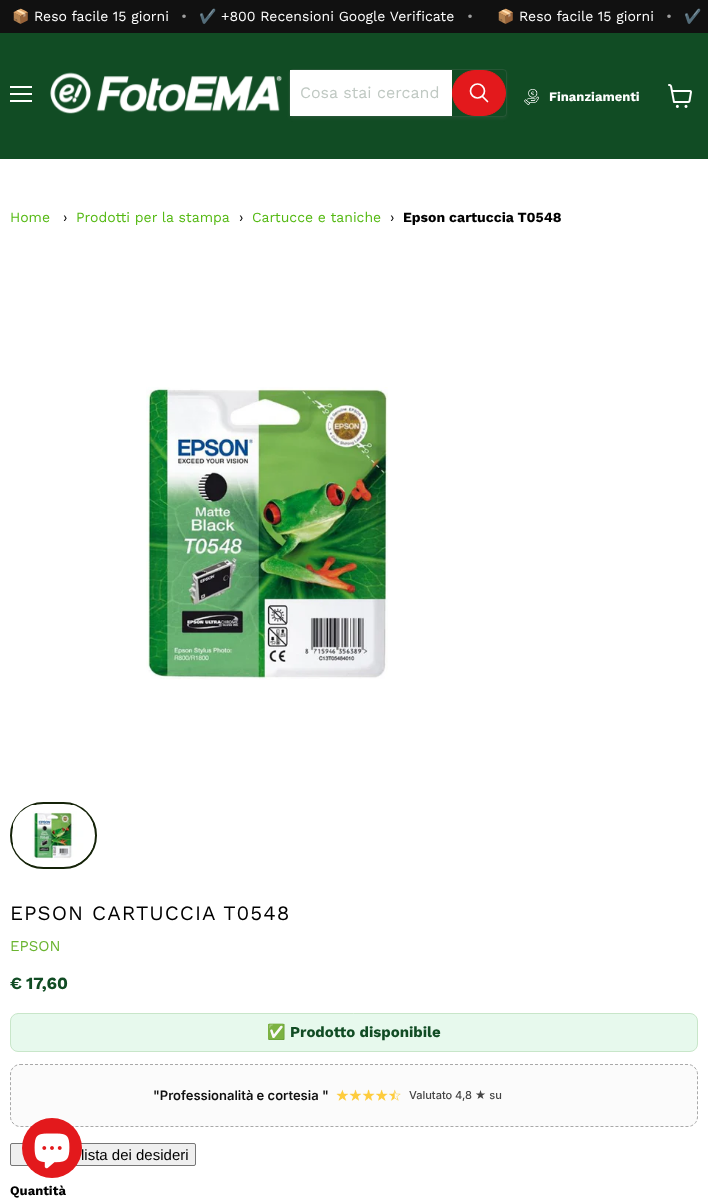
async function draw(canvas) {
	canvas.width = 708;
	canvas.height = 1199;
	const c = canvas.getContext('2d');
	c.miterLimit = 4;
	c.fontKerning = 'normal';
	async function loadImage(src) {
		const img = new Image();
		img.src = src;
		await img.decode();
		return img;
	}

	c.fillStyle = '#fff';
	c.fillRect(0, 0, 708, 1199);
	c.fillStyle = '#111';
	c.fillRect(0, 0, 708, 33);
	c.font = '14px Noto Color Emoji';
	c.fillStyle = '#fff';
	c.fillText('📦', 12, 21);
	c.font = '14px Work Sans';
	c.fillText('Reso facile 15 giorni', 34, 21);
	c.fillStyle = '#a0a0a0';
	c.fillText('•', 181, 21);
	c.font = '14px Noto Color Emoji';
	c.fillStyle = '#fff';
	c.fillText('✔️', 199, 21);
	c.font = '14px Work Sans';
	c.fillText('+800 Recensioni Google Verificate', 221, 21);
	c.fillStyle = '#a0a0a0';
	c.fillText('•', 467, 21);
	c.font = '14px Noto Color Emoji';
	c.fillStyle = '#fff';
	c.fillText('📦', 497, 21);
	c.font = '14px Work Sans';
	c.fillText('Reso facile 15 giorni', 519, 21);
	c.fillStyle = '#a0a0a0';
	c.fillText('•', 666, 21);
	c.font = '14px Noto Color Emoji';
	c.fillStyle = '#fff';
	c.fillText('✔️', 684, 21);
	for (const [x, y, w, h, color] of [
		[0, 33, 708, 126, '#114c24'],
		[10, 86, 22, 2, '#fff'],
		[10, 93, 22, 2, '#fff'],
		[10, 100, 22, 2, '#fff'],
	]) {
		c.fillStyle = color;
		c.fillRect(x, y, w, h);
	}
	c.drawImage(await loadImage('img1.png'), 50, 72, 232, 42);
	c.save();
	c.beginPath();
	c.moveTo(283, 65);
	c.lineTo(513, 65);
	c.lineTo(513, 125);
	c.lineTo(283, 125);
	c.closePath();
	c.moveTo(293, 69);
	c.lineTo(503, 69);
	c.bezierCurveTo(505, 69, 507, 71, 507, 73);
	c.lineTo(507, 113);
	c.bezierCurveTo(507, 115, 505, 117, 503, 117);
	c.lineTo(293, 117);
	c.bezierCurveTo(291, 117, 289, 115, 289, 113);
	c.lineTo(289, 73);
	c.bezierCurveTo(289, 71, 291, 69, 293, 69);
	c.closePath();
	c.clip('evenodd');
	c.fillStyle = '#8080801c';
	c.filter = 'blur(1.5px)';
	c.beginPath();
	c.roundRect(289, 71, 218, 48, 4);
	c.fill();
	c.filter = 'none';
	c.restore();
	c.beginPath();
	c.roundRect(289.5, 69.5, 217, 47, 3.5);
	c.strokeStyle = '#80808033';
	c.stroke();
	c.fillRect(290, 70, 162, 46);
	c.font = '16px Work Sans';
	c.fillStyle = '#c0c9c3';
	c.fillText('Cosa stai cercand', 300, 98);
	c.fillStyle = '#e3191c';
	c.beginPath();
	c.roundRect(452.5, 70.5, 53, 45, 22.5);
	c.fill();
	c.strokeStyle = '#e3191c';
	c.stroke();
	c.beginPath();
	c.moveTo(487.5, 101.5);
	c.lineTo(482.5, 96.5);
	c.strokeStyle = '#fff';
	c.lineWidth = 1.7;
	c.lineCap = 'round';
	c.stroke();
	c.beginPath();
	c.arc(477.5, 91, 7, 0, 2 * Math.PI);
	c.stroke();
	c.drawImage(await loadImage('img2.png'), 524, 89, 15, 16);
	c.font = 'bold 13px Work Sans';
	c.fillStyle = '#fff';
	c.fillText('Finanziamenti', 549, 101);
	c.drawImage(await loadImage('img3.png'), 668, 84, 24, 24);
	c.font = '14px Work Sans';
	c.fillStyle = '#54b912';
	c.fillText('Home', 10, 222);
	c.fillStyle = '#000';
	c.fillText('›', 63, 222);
	c.fillStyle = '#54b912';
	c.fillText('Prodotti per la stampa', 76, 222);
	c.fillStyle = '#000';
	c.fillText('›', 239, 222);
	c.fillStyle = '#54b912';
	c.fillText('Cartucce e taniche', 252, 222);
	c.fillStyle = '#000';
	c.fillText('›', 390, 222);
	c.font = 'bold 14px Work Sans';
	c.fillText('Epson cartuccia T0548', 403, 222);
	c.drawImage(await loadImage('img4.png'), 146, 387, 242, 293);
	c.beginPath();
	c.roundRect(11, 803, 85, 65, 32.5);
	c.strokeStyle = '#152309';
	c.lineWidth = 2;
	c.stroke();
	c.drawImage(await loadImage('img5.png'), 13, 805, 80, 60);
	c.letterSpacing = '1px';
	c.font = '20.5px Work Sans';
	c.fillText('EPSON CARTUCCIA T0548', 10, 920);
	c.letterSpacing = '0px';
	c.font = '15px Work Sans';
	c.fillStyle = '#6ab430';
	c.fillText('EPSON', 10, 951);
	c.font = 'bold 17px Work Sans';
	c.fillStyle = '#114c24';
	c.fillText('€', 10, 989);
	c.fillText('17,60', 26, 989);
	c.fillStyle = '#e7f9ed';
	c.beginPath();
	c.roundRect(10.5, 1013.5, 687, 38, 7.5);
	c.fill();
	c.strokeStyle = '#c8e6c9';
	c.lineWidth = 1;
	c.stroke();
	c.font = 'bold 15px Noto Color Emoji';
	c.fillStyle = '#114c24';
	c.fillText('✅', 267, 1037);
	c.font = 'bold 15px Work Sans';
	c.fillText('Prodotto disponibile', 290, 1037);
	c.fillStyle = '#fbfbfb';
	c.beginPath();
	c.roundRect(10, 1064, 688, 63, 10);
	c.fill();
	c.beginPath();
	c.moveTo(20, 1064.5);
	c.lineTo(688, 1064.5);
	c.bezierCurveTo(693, 1064.5, 697.5, 1069, 697.5, 1074);
	c.lineTo(697.5, 1117);
	c.bezierCurveTo(697.5, 1122, 693, 1126.5, 688, 1126.5);
	c.lineTo(20, 1126.5);
	c.bezierCurveTo(15, 1126.5, 10.5, 1122, 10.5, 1117);
	c.lineTo(10.5, 1074);
	c.bezierCurveTo(10.5, 1069, 15, 1064.5, 20, 1064.5);
	c.closePath();
	c.strokeStyle = '#a9a9a9';
	c.lineCap = 'butt';
	c.setLineDash([3, 2]);
	c.stroke();
	c.font = '600 13px Inter';
	c.fillStyle = '#111';
	c.fillText('"Professionalità e cortesia "', 153, 1100);
	c.drawImage(await loadImage('img6.png'), 336, 1089, 65, 12);
	c.font = '500 11px Inter';
	c.fillStyle = '#444';
	c.fillText('Valutato 4,8 ★ su', 409, 1099);
	c.fillStyle = '#efefef';
	c.beginPath();
	c.roundRect(10.5, 1143.5, 185, 22, 1.5);
	c.fill();
	c.strokeStyle = '#767676';
	c.setLineDash([]);
	c.stroke();
	c.font = '15px Liberation Sans';
	c.fillStyle = '#000';
	c.fillText('lista dei desideri', 81, 1160);
	c.font = 'bold 13px Work Sans';
	c.fillText('Quantità', 10, 1195);
	c.fillStyle = '#e3191c';
	c.beginPath();
	c.arc(52, 1148, 30, 0, 2 * Math.PI);
	c.fill();
	c.drawImage(await loadImage('img7.png'), 34, 1133, 36, 36);
}

draw(document.querySelector('canvas'));
